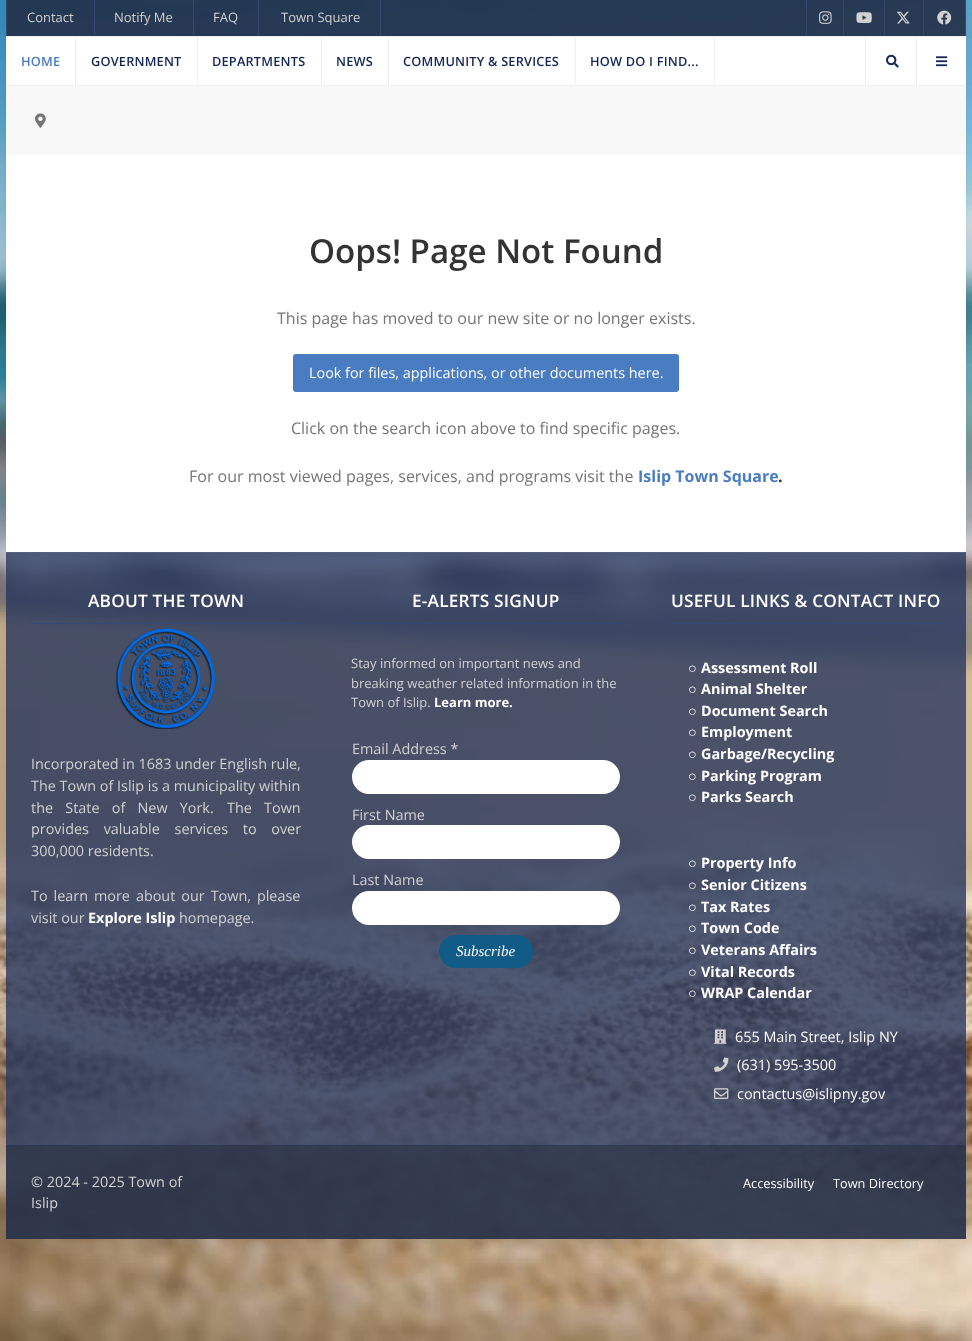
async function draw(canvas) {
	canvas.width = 972;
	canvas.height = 1341;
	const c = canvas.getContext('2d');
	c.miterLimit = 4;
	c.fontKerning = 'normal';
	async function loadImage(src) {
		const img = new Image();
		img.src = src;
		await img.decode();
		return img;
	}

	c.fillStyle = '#fff';
	c.fillRect(0, 0, 972, 1341);
	c.drawImage(await loadImage('img1.png'), 0, 0, 972, 1341);
	c.save();
	c.beginPath();
	c.moveTo(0, 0);
	c.lineTo(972, 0);
	c.lineTo(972, 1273);
	c.lineTo(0, 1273);
	c.closePath();
	c.moveTo(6, -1);
	c.lineTo(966, -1);
	c.lineTo(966, 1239);
	c.lineTo(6, 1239);
	c.closePath();
	c.clip('evenodd');
	c.fillStyle = '#0000001a';
	c.filter = 'blur(10px)';
	c.beginPath();
	c.rect(6, 2, 960, 1240);
	c.fill();
	c.filter = 'none';
	c.restore();
	for (const [x, y, w, h, color] of [
		[6, 0, 959, 36, '#242f47e6'],
		[94, 0, 1, 35, '#37486d'],
		[6, 0, 1, 35, '#37486d'],
	]) {
		c.fillStyle = color;
		c.fillRect(x, y, w, h);
	}
	c.font = '13px Open Sans';
	c.fillStyle = '#d1d1d1';
	c.fillText('Contact', 27, 22);
	c.fillStyle = '#37486d';
	c.fillRect(193, 0, 1, 35);
	c.fillStyle = '#d1d1d1';
	c.fillText('Notify Me', 114, 22);
	c.fillStyle = '#37486d';
	c.fillRect(258, 0, 1, 35);
	c.fillStyle = '#d1d1d1';
	c.fillText('FAQ', 213, 22);
	c.fillStyle = '#37486d';
	c.fillRect(380, 0, 1, 35);
	c.fillStyle = '#d1d1d1';
	c.fillText('Town Square', 281, 22);
	c.fillStyle = '#37486d';
	c.fillRect(843, 0, 1, 37);
	c.fillRect(806, 0, 1, 37);
	c.drawImage(await loadImage('img2.png'), 819, 11, 13, 13);
	c.fillRect(884, 0, 1, 37);
	c.drawImage(await loadImage('img3.png'), 856, 12, 16, 11);
	c.fillRect(923, 0, 1, 37);
	c.drawImage(await loadImage('img4.png'), 896, 11, 14, 13);
	c.fillStyle = '#38496d';
	c.fillRect(965, 0, 1, 37);
	c.drawImage(await loadImage('img5.png'), 937, 10, 15, 15);
	for (const [x, y, w, h, color] of [
		[6, 37, 960, 48, '#fff'],
		[6, 36, 960, 1, '#efefef'],
		[6, 85, 960, 1, '#efefef'],
		[75, 37, 1, 48, '#efefef'],
	]) {
		c.fillStyle = color;
		c.fillRect(x, y, w, h);
	}
	c.letterSpacing = '0.2px';
	c.font = '600 12.75px Open Sans';
	c.fillStyle = '#4a7cc2';
	c.fillText('HOME', 21, 66);
	c.fillStyle = '#efefef';
	c.fillRect(197, 37, 1, 48);
	c.fillStyle = '#152752';
	c.fillText('GOVERNMENT', 91, 66);
	c.fillStyle = '#efefef';
	c.fillRect(321, 37, 1, 48);
	c.fillStyle = '#152752';
	c.fillText('DEPARTMENTS', 212, 66);
	c.fillStyle = '#efefef';
	c.fillRect(388, 37, 1, 48);
	c.fillStyle = '#152752';
	c.fillText('NEWS', 336, 66);
	c.fillStyle = '#efefef';
	c.fillRect(575, 37, 1, 48);
	c.fillStyle = '#152752';
	c.fillText('COMMUNITY & SERVICES', 403, 66);
	c.fillStyle = '#efefef';
	c.fillRect(714, 37, 1, 48);
	c.fillStyle = '#152752';
	c.fillText('HOW DO I FIND...', 590, 66);
	c.fillStyle = '#efefef';
	c.fillRect(916, 37, 1, 48);
	c.fillRect(865, 37, 1, 48);
	c.drawImage(await loadImage('img6.png'), 886, 54, 13, 14);
	c.drawImage(await loadImage('img7.png'), 936, 56, 12, 11);
	c.fillStyle = '#f8f8f8';
	c.fillRect(6, 86, 960, 69);
	c.drawImage(await loadImage('img8.png'), 35, 113, 11, 15);
	c.fillStyle = '#fff';
	c.fillRect(6, 155, 960, 398);
	c.letterSpacing = '0px';
	c.font = '600 33.1px Open Sans';
	c.fillStyle = '#333';
	c.fillText('Oops! Page Not Found', 309, 263);
	c.font = '16px Open Sans';
	c.fillStyle = '#757575';
	c.fillText('This page has moved to our new site or no longer exists.', 277, 324);
	c.fillStyle = '#4a7cc2';
	c.beginPath();
	c.roundRect(293, 354, 386, 38, 3);
	c.fill();
	c.font = '14.4px Open Sans';
	c.fillStyle = '#fff';
	c.fillText('Look for files, applications, or other documents here.', 309, 378);
	c.font = '16px Open Sans';
	c.fillStyle = '#757575';
	c.fillText('Click on the search icon above to find specific pages.', 291, 434);
	c.fillText('For our most viewed pages, services, and programs visit the', 189, 482);
	c.font = 'bold 16px Open Sans';
	c.fillStyle = '#4a7cc2';
	c.fillText('Islip Town Square', 638, 482);
	c.fillStyle = '#333';
	c.fillText('.', 778, 482);
	c.fillStyle = '#23345bc9';
	c.fillRect(6, 552, 960, 593);
	c.fillStyle = '#314980c9';
	c.fillRect(31, 623, 270, 1);
	c.letterSpacing = '0.2px';
	c.font = '600 17.25px Open Sans';
	c.fillStyle = '#fff';
	c.fillText('ABOUT THE TOWN', 88, 607);
	c.drawImage(await loadImage('img9.png'), 116, 628, 99, 101);
	c.letterSpacing = '0px';
	c.font = '14.4px Open Sans';
	c.fillStyle = '#d1d1d1';
	c.fillText('Incorporated in 1683 under English rule,', 31, 769);
	c.fillText('The Town of Islip is a municipality within', 31, 791);
	c.wordSpacing = '8.5px';
	c.fillText('the State of New York.', 31, 813);
	c.fillText('The Town', 227, 813);
	c.wordSpacing = '11px';
	c.fillText('provides valuable services to over', 31, 834);
	c.wordSpacing = '0px';
	c.fillText('300,000 residents.', 31, 856);
	c.wordSpacing = '2.25px';
	c.fillText('To learn more about our Town, please', 31, 901);
	c.wordSpacing = '0px';
	c.fillText('visit our', 31, 923);
	c.font = 'bold 14.4px Open Sans';
	c.fillStyle = '#fff';
	c.fillText('Explore Islip', 88, 923);
	c.font = '14.4px Open Sans';
	c.fillStyle = '#d1d1d1';
	c.fillText('homepage.', 179, 923);
	c.fillStyle = '#33487a';
	c.fillRect(351, 623, 270, 1);
	c.letterSpacing = '0.2px';
	c.font = '600 17.25px Open Sans';
	c.fillStyle = '#fff';
	c.fillText('E-ALERTS SIGNUP', 412, 607);
	c.letterSpacing = '0px';
	c.font = '13px Open Sans';
	c.fillStyle = '#d1d1d1';
	for (const [text, x, y] of [
		['Stay informed on important news and', 351, 668],
		['breaking weather related information in the', 351, 688],
		['Town of Islip.', 351, 707],
	]) {
		c.fillText(text, x, y);
	}
	c.font = 'bold 13px Open Sans';
	c.fillStyle = '#fff';
	c.fillText('Learn more.', 434, 707);
	c.font = '14.4px Open Sans';
	c.fillStyle = '#d1d1d1';
	c.fillText('Email Address *', 352, 754);
	c.fillStyle = '#fff';
	c.beginPath();
	c.roundRect(352, 760, 268, 34, 17);
	c.fill();
	c.fillStyle = '#d1d1d1';
	c.fillText('First Name', 352, 820);
	c.fillStyle = '#fff';
	c.beginPath();
	c.roundRect(352, 825, 268, 34, 17);
	c.fill();
	c.fillStyle = '#d1d1d1';
	c.fillText('Last Name', 352, 885);
	c.fillStyle = '#fff';
	c.beginPath();
	c.roundRect(352, 891, 268, 34, 17);
	c.fill();
	c.fillStyle = '#115b87';
	c.beginPath();
	c.roundRect(439, 935, 94, 33, 16.5);
	c.fill();
	c.font = 'italic 15px Liberation Serif';
	c.fillStyle = '#fff';
	c.fillText('Subscribe', 456, 956);
	c.fillStyle = '#314980c9';
	c.fillRect(671, 623, 270, 1);
	c.letterSpacing = '0.2px';
	c.font = '600 17.25px Open Sans';
	c.fillStyle = '#fff';
	c.fillText('USEFUL LINKS & CONTACT INFO', 671, 607);
	c.letterSpacing = '0px';
	c.font = 'bold 14.4px Liberation Serif';
	c.fillText('○', 688, 673);
	c.font = 'bold 14.4px Open Sans';
	c.fillText('Assessment Roll', 701, 673);
	c.font = 'bold 14.4px Liberation Serif';
	c.fillText('○', 688, 694);
	c.font = 'bold 14.4px Open Sans';
	c.fillText('Animal Shelter', 701, 694);
	c.font = 'bold 14.4px Liberation Serif';
	c.fillText('○', 688, 716);
	c.font = 'bold 14.4px Open Sans';
	c.fillText('Document Search', 701, 716);
	c.font = 'bold 14.4px Liberation Serif';
	c.fillText('○', 688, 737);
	c.font = 'bold 14.4px Open Sans';
	c.fillText('Employment', 701, 737);
	c.font = 'bold 14.4px Liberation Serif';
	c.fillText('○', 688, 759);
	c.font = 'bold 14.4px Open Sans';
	c.fillText('Garbage/Recycling', 701, 759);
	c.font = 'bold 14.4px Liberation Serif';
	c.fillText('○', 688, 781);
	c.font = 'bold 14.4px Open Sans';
	c.fillText('Parking Program', 701, 781);
	c.font = 'bold 14.4px Liberation Serif';
	c.fillText('○', 688, 802);
	c.font = 'bold 14.4px Open Sans';
	c.fillText('Parks Search', 701, 802);
	c.font = 'bold 14.4px Liberation Serif';
	c.fillText('○', 688, 868);
	c.font = 'bold 14.4px Open Sans';
	c.fillText('Property Info', 701, 868);
	c.font = 'bold 14.4px Liberation Serif';
	c.fillText('○', 688, 890);
	c.font = 'bold 14.4px Open Sans';
	c.fillText('Senior Citizens', 701, 890);
	c.font = 'bold 14.4px Liberation Serif';
	c.fillText('○', 688, 912);
	c.font = 'bold 14.4px Open Sans';
	c.fillText('Tax Rates', 701, 912);
	c.font = 'bold 14.4px Liberation Serif';
	c.fillText('○', 688, 933);
	c.font = 'bold 14.4px Open Sans';
	c.fillText('Town Code', 701, 933);
	c.font = 'bold 14.4px Liberation Serif';
	c.fillText('○', 688, 955);
	c.font = 'bold 14.4px Open Sans';
	c.fillText('Veterans Affairs', 701, 955);
	c.font = 'bold 14.4px Liberation Serif';
	c.fillText('○', 688, 977);
	c.font = 'bold 14.4px Open Sans';
	c.fillText('Vital Records', 701, 977);
	c.font = 'bold 14.4px Liberation Serif';
	c.fillText('○', 688, 998);
	c.font = 'bold 14.4px Open Sans';
	c.fillText('WRAP Calendar', 701, 998);
	c.drawImage(await loadImage('img10.png'), 714, 1029, 13, 15);
	c.font = '14.4px Open Sans';
	c.fillText('655 Main Street, Islip NY', 735, 1042);
	c.drawImage(await loadImage('img11.png'), 714, 1057, 15, 15);
	c.fillText('(631) 595-3500', 737, 1070);
	c.drawImage(await loadImage('img12.png'), 714, 1088, 15, 11);
	c.fillText('contactus@islipny.gov', 737, 1099);
	c.fillStyle = '#242f47e8';
	c.fillRect(6, 1146, 960, 93);
	c.fillStyle = '#2c3957';
	c.fillRect(6, 1145, 960, 1);
	c.fillStyle = '#d1d1d1';
	c.fillText('© 2024 - 2025 Town of', 31, 1187);
	c.fillText('Islip', 31, 1208);
	c.font = '12.75px Open Sans';
	c.fillStyle = '#fff';
	c.fillText('Accessibility', 743, 1188);
	c.fillText('Town Directory', 833, 1188);
}

draw(document.querySelector('canvas'));
